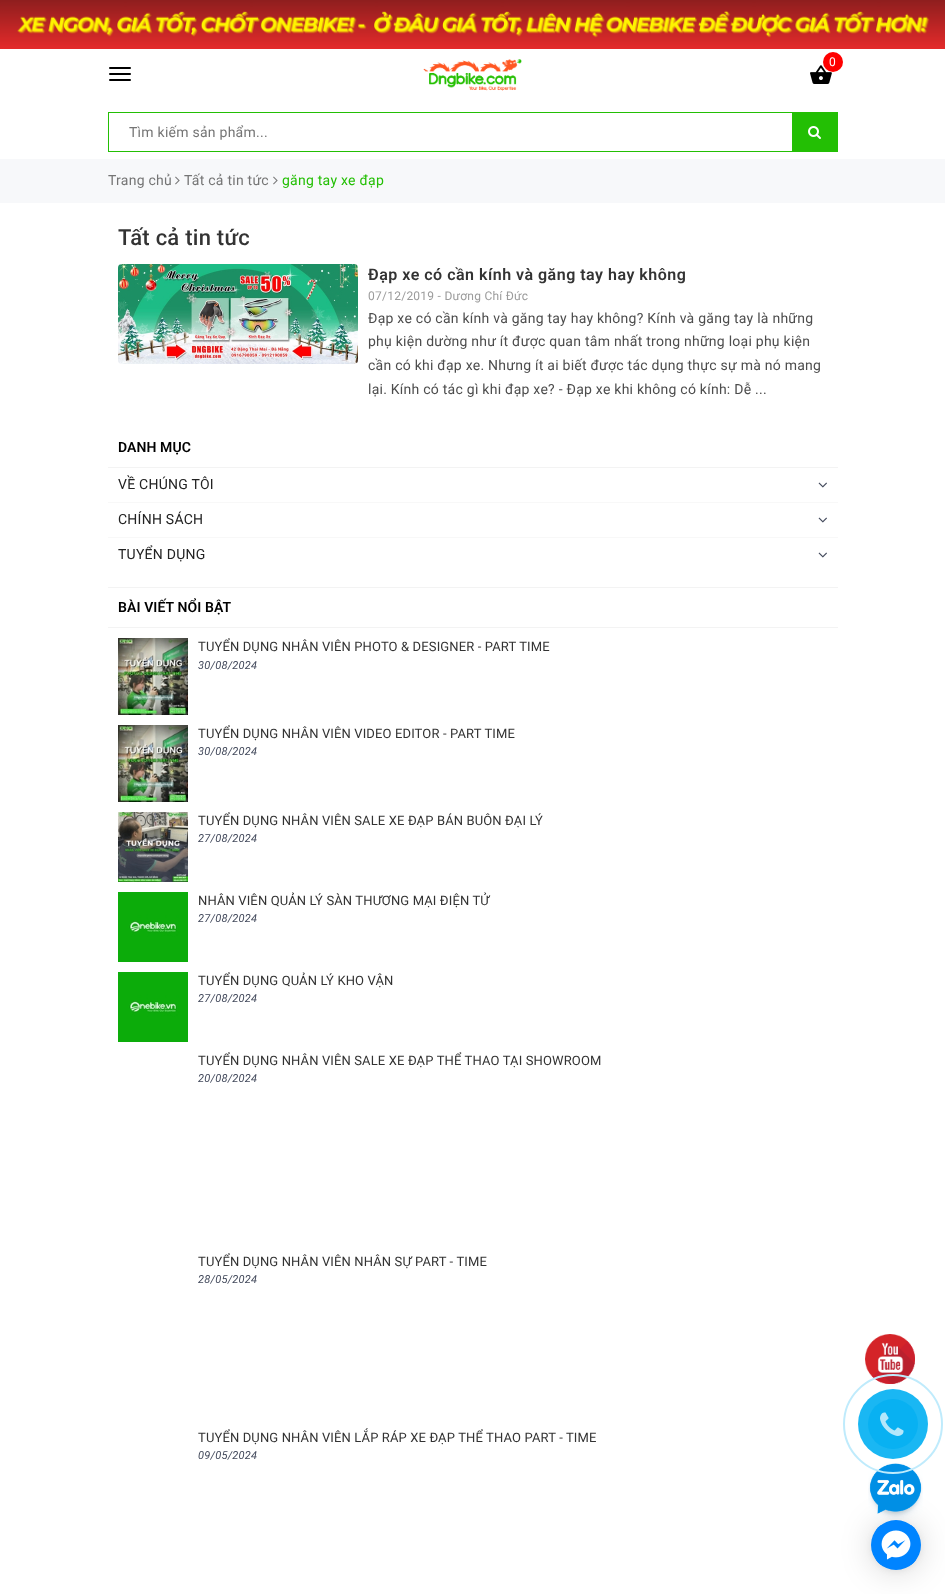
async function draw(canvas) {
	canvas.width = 945;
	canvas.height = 1594;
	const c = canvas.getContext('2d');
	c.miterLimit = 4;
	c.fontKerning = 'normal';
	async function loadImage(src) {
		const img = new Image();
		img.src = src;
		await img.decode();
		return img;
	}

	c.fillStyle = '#fff';
	c.fillRect(0, 0, 945, 1594);
	c.drawImage(await loadImage('img1.png'), 0, 0, 945, 49);
	c.fillStyle = '#000';
	c.beginPath();
	c.roundRect(109, 67, 22, 2, 1);
	c.fill();
	c.beginPath();
	c.roundRect(109, 73, 22, 2, 1);
	c.fill();
	c.beginPath();
	c.roundRect(109, 79, 22, 2, 1);
	c.fill();
	c.drawImage(await loadImage('img2.png'), 423, 59, 99, 32);
	c.drawImage(await loadImage('img3.png'), 810, 65, 22, 19);
	c.fillStyle = '#f00';
	c.beginPath();
	c.arc(833, 62, 10, 0, 2 * Math.PI);
	c.fill();
	c.letterSpacing = '0.25px';
	c.font = '12px Roboto';
	c.fillStyle = '#fff';
	c.fillText('0', 829, 66);
	c.strokeStyle = '#23bf04';
	c.strokeRect(108.5, 112.5, 729, 39);
	c.font = '14px Roboto';
	c.fillStyle = '#757575';
	c.fillText('Tìm kiếm sản phẩm...', 129, 137);
	c.fillStyle = '#23bf04';
	c.fillRect(792, 113, 45, 38);
	c.drawImage(await loadImage('img4.png'), 808, 126, 13, 13);
	c.fillStyle = '#f7f8fa';
	c.fillRect(0, 159, 945, 44);
	c.fillStyle = '#757575';
	c.fillText('Trang chủ', 108, 185);
	c.drawImage(await loadImage('img5.png'), 175, 176, 5, 9);
	c.fillText('Tất cả tin tức', 184, 185);
	c.drawImage(await loadImage('img5.png'), 273, 176, 5, 9);
	c.fillStyle = '#23bf04';
	c.fillText('găng tay xe đạp', 282, 185);
	c.font = '500 22px Roboto';
	c.fillStyle = '#333';
	c.fillText('Tất cả tin tức', 118, 245);
	c.drawImage(await loadImage('img6.png'), 118, 264, 240, 100);
	c.letterSpacing = '0.5px';
	c.font = '600 16px Roboto';
	c.fillText('Đạp xe có cần kính và găng tay hay không', 368, 280);
	c.letterSpacing = '0.25px';
	c.font = '12px Roboto';
	c.fillStyle = '#9b9b9b';
	c.fillText('07/12/2019 - Dương Chí Đức', 368, 300);
	c.font = '14px Roboto';
	c.fillStyle = '#4d4d4d';
	for (const [text, x, y] of [
		['Đạp xe có cần kính và găng tay hay không? Kính và găng tay là những', 368, 323],
		['phụ kiện dường như ít được quan tâm nhất trong những loại phụ kiện', 368, 346],
		['cần có khi đạp xe. Nhưng ít ai biết được tác dụng thực sự mà nó mang', 368, 370],
		['lại. Kính có tác gì khi đạp xe? - Đạp xe khi không có kính: Dễ ...', 368, 394],
	]) {
		c.fillText(text, x, y);
	}
	c.fillStyle = '#f3f3f3';
	c.fillRect(108, 467, 730, 1);
	c.letterSpacing = '0.1px';
	c.font = '600 14px Roboto';
	c.fillStyle = '#000';
	c.fillText('DANH MỤC', 118, 452);
	c.fillStyle = '#f8f8f8';
	c.fillRect(108, 502, 730, 1);
	c.letterSpacing = '0.25px';
	c.font = '14px Roboto';
	c.fillStyle = '#222';
	c.fillText('VỀ CHÚNG TÔI', 118, 489);
	c.drawImage(await loadImage('img7.png'), 818, 482, 9, 6);
	c.fillStyle = '#f8f8f8';
	c.fillRect(108, 537, 730, 1);
	c.fillStyle = '#222';
	c.fillText('CHÍNH SÁCH', 118, 524);
	c.drawImage(await loadImage('img7.png'), 818, 517, 9, 6);
	c.fillText('TUYỂN DỤNG', 118, 559);
	c.drawImage(await loadImage('img7.png'), 818, 552, 9, 6);
	c.fillStyle = '#f3f3f3';
	c.fillRect(108, 587, 730, 1);
	c.fillRect(108, 627, 730, 1);
	c.letterSpacing = '0.1px';
	c.font = '600 14px Roboto';
	c.fillStyle = '#000';
	c.fillText('BÀI VIẾT NỔI BẬT', 118, 612);
	c.drawImage(await loadImage('img8.png'), 118, 638, 70, 77);
	c.letterSpacing = '0.13px';
	c.font = '13px Roboto';
	c.fillStyle = '#333';
	c.fillText('TUYỂN DỤNG NHÂN VIÊN PHOTO & DESIGNER - PART TIME', 198, 651);
	c.letterSpacing = '0.25px';
	c.font = 'italic 11px Roboto';
	c.fillStyle = '#42495b';
	c.fillText('30/08/2024', 198, 669);
	c.drawImage(await loadImage('img9.png'), 118, 725, 70, 77);
	c.letterSpacing = '0.13px';
	c.font = '13px Roboto';
	c.fillStyle = '#333';
	c.fillText('TUYỂN DỤNG NHÂN VIÊN VIDEO EDITOR - PART TIME', 198, 738);
	c.letterSpacing = '0.25px';
	c.font = 'italic 11px Roboto';
	c.fillStyle = '#42495b';
	c.fillText('30/08/2024', 198, 755);
	c.drawImage(await loadImage('img10.png'), 118, 812, 70, 70);
	c.letterSpacing = '0.13px';
	c.font = '13px Roboto';
	c.fillStyle = '#333';
	c.fillText('TUYỂN DỤNG NHÂN VIÊN SALE XE ĐẠP BÁN BUÔN ĐẠI LÝ', 198, 825);
	c.letterSpacing = '0.25px';
	c.font = 'italic 11px Roboto';
	c.fillStyle = '#42495b';
	c.fillText('27/08/2024', 198, 842);
	c.drawImage(await loadImage('img11.png'), 118, 892, 70, 70);
	c.letterSpacing = '0.13px';
	c.font = '13px Roboto';
	c.fillStyle = '#333';
	c.fillText('NHÂN VIÊN QUẢN LÝ SÀN THƯƠNG MẠI ĐIỆN TỬ', 198, 905);
	c.letterSpacing = '0.25px';
	c.font = 'italic 11px Roboto';
	c.fillStyle = '#42495b';
	c.fillText('27/08/2024', 198, 922);
	c.drawImage(await loadImage('img11.png'), 118, 972, 70, 70);
	c.letterSpacing = '0.13px';
	c.font = '13px Roboto';
	c.fillStyle = '#333';
	c.fillText('TUYỂN DỤNG QUẢN LÝ KHO VẬN', 198, 985);
	c.letterSpacing = '0.25px';
	c.font = 'italic 11px Roboto';
	c.fillStyle = '#42495b';
	c.fillText('27/08/2024', 198, 1002);
	c.letterSpacing = '0.13px';
	c.font = '13px Roboto';
	c.fillStyle = '#333';
	c.fillText('TUYỂN DỤNG NHÂN VIÊN SALE XE ĐẠP THỂ THAO TẠI SHOWROOM', 198, 1065);
	c.letterSpacing = '0.25px';
	c.font = 'italic 11px Roboto';
	c.fillStyle = '#42495b';
	c.fillText('20/08/2024', 198, 1082);
	c.letterSpacing = '0.13px';
	c.font = '13px Roboto';
	c.fillStyle = '#333';
	c.fillText('TUYỂN DỤNG NHÂN VIÊN NHÂN SỰ PART - TIME', 198, 1266);
	c.letterSpacing = '0.25px';
	c.font = 'italic 11px Roboto';
	c.fillStyle = '#42495b';
	c.fillText('28/05/2024', 198, 1283);
	c.letterSpacing = '0.13px';
	c.font = '13px Roboto';
	c.fillStyle = '#333';
	c.fillText('TUYỂN DỤNG NHÂN VIÊN LẮP RÁP XE ĐẠP THỂ THAO PART - TIME', 198, 1442);
	c.letterSpacing = '0.25px';
	c.font = 'italic 11px Roboto';
	c.fillStyle = '#42495b';
	c.fillText('09/05/2024', 198, 1459);
	c.drawImage(await loadImage('img12.png'), 865, 1334, 50, 50);
	c.fillStyle = '#00000029';
	c.filter = 'blur(16px)';
	c.beginPath();
	c.roundRect(871, 1522, 50, 50, 25);
	c.fill();
	c.filter = 'none';
	c.fillStyle = '#0000000f';
	c.filter = 'blur(3px)';
	c.beginPath();
	c.roundRect(871, 1521, 50, 50, 25);
	c.fill();
	c.filter = 'none';
	c.drawImage(await loadImage('img14.png'), 868, 1463, 55, 56);
	c.beginPath();
	c.arc(893, 1424, 49, 0, 2 * Math.PI);
	c.strokeStyle = '#bfebfc';
	c.lineWidth = 2;
	c.stroke();
	c.fillStyle = '#1ab7f3';
	c.beginPath();
	c.arc(893, 1424, 35, 0, 2 * Math.PI);
	c.fill();
	c.fillStyle = '#08b1f2';
	c.beginPath();
	c.arc(893, 1424, 25, 0, 2 * Math.PI);
	c.fill();
	c.drawImage(await loadImage('img13.png'), 880, 1412, 24, 24);
	c.fillStyle = '#0084ff';
	c.beginPath();
	c.arc(896, 1545, 25, 0, 2 * Math.PI);
	c.fill();
	c.drawImage(await loadImage('img15.png'), 876, 1525, 40, 40);
}

draw(document.querySelector('canvas'));
